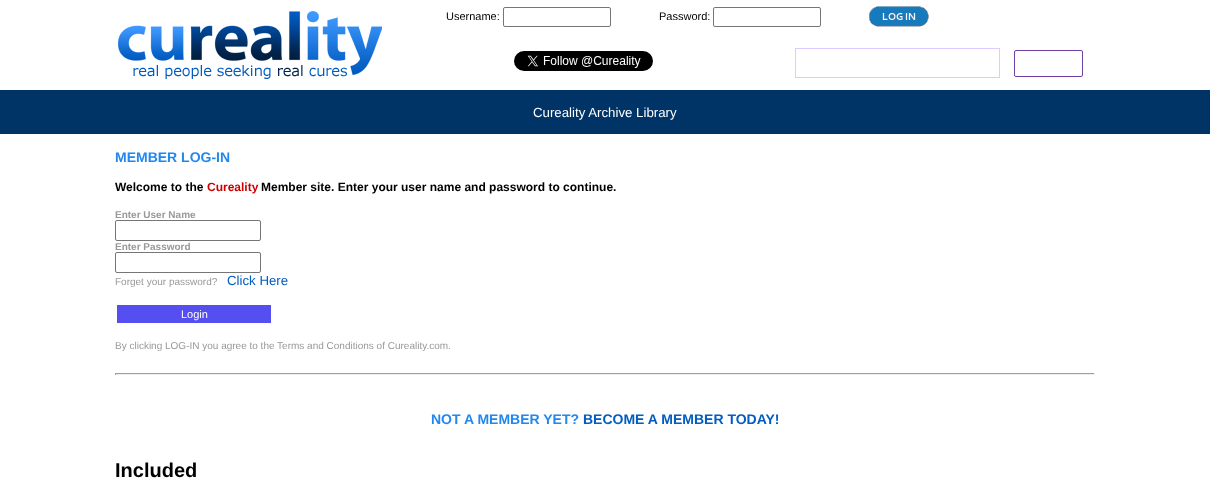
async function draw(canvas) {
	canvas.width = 1210;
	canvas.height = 479;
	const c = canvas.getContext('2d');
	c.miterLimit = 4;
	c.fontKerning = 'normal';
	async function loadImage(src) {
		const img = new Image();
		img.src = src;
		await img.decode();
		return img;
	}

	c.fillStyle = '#fff';
	c.fillRect(0, 0, 1210, 479);
	c.drawImage(await loadImage('img1.png'), 118, 11, 264, 68);
	c.font = '11px Liberation Sans';
	c.fillStyle = '#000';
	c.fillText('Username:', 446, 20);
	c.beginPath();
	c.roundRect(503.5, 7.5, 107, 19, 1.5);
	c.strokeStyle = '#767676';
	c.stroke();
	c.fillText('Password:', 659, 20);
	c.beginPath();
	c.roundRect(713.5, 7.5, 107, 19, 1.5);
	c.stroke();
	c.drawImage(await loadImage('img2.png'), 869, 6, 60, 21);
	c.drawImage(await loadImage('img3.png'), 514, 51, 139, 20);
	c.strokeStyle = '#decaff';
	c.strokeRect(795.5, 48.5, 204, 29);
	c.beginPath();
	c.roundRect(1014.5, 50.5, 68, 26, 1.5);
	c.strokeStyle = '#6d40a2';
	c.stroke();
	c.fillStyle = '#036';
	c.fillRect(0, 90, 1210, 44);
	c.font = '13.25px Liberation Sans';
	c.fillStyle = '#fff';
	c.fillText('Cureality Archive Library', 533, 117);
	c.font = 'bold 14px Liberation Sans';
	c.fillStyle = '#28e';
	c.fillText('MEMBER LOG-IN', 115, 162);
	c.font = 'bold 12px Liberation Sans';
	c.fillStyle = '#000';
	c.fillText('Welcome to the', 115, 191);
	c.fillStyle = '#c00';
	c.fillText('Cureality', 207, 191);
	c.fillStyle = '#000';
	c.fillText('Member site. Enter your user name and password to continue.', 261, 191);
	c.font = 'bold 10px Liberation Sans';
	c.fillStyle = '#999';
	c.fillText('Enter User Name', 115, 218);
	c.beginPath();
	c.roundRect(115.5, 220.5, 145, 20, 1.5);
	c.strokeStyle = '#767676';
	c.stroke();
	c.fillText('Enter Password', 115, 250);
	c.beginPath();
	c.roundRect(115.5, 252.5, 145, 20, 1.5);
	c.stroke();
	c.font = '10px Liberation Sans';
	c.fillText('Forget your password?', 115, 285);
	c.font = '13.25px Liberation Sans';
	c.fillStyle = '#025cc2';
	c.fillText('Click Here', 227, 285);
	c.fillStyle = '#554ff1';
	c.fillRect(117, 305, 154, 18);
	c.font = '11px Liberation Sans';
	c.fillStyle = '#fff';
	c.fillText('Login', 181, 318);
	c.font = '10px Liberation Sans';
	c.fillStyle = '#999';
	c.fillText('By clicking LOG-IN you agree to the Terms and Conditions of Cureality.com.', 115, 349);
	for (const [x, y, w, h, color] of [
		[115, 373, 980, 1, '#9f9f9f'],
		[1094, 373, 1, 2, '#eee'],
		[115, 374, 980, 1, '#eee'],
		[115, 373, 1, 2, '#9f9f9f'],
	]) {
		c.fillStyle = color;
		c.fillRect(x, y, w, h);
	}
	c.font = 'bold 14px Liberation Sans';
	c.fillStyle = '#28e';
	c.fillText('NOT A MEMBER YET?', 431, 424);
	c.fillStyle = '#025cc2';
	c.fillText('BECOME A MEMBER TODAY!', 583, 424);
	c.font = 'bold 20px Liberation Sans';
	c.fillStyle = '#000';
	c.fillText('Included', 115, 477);
}

draw(document.querySelector('canvas'));
